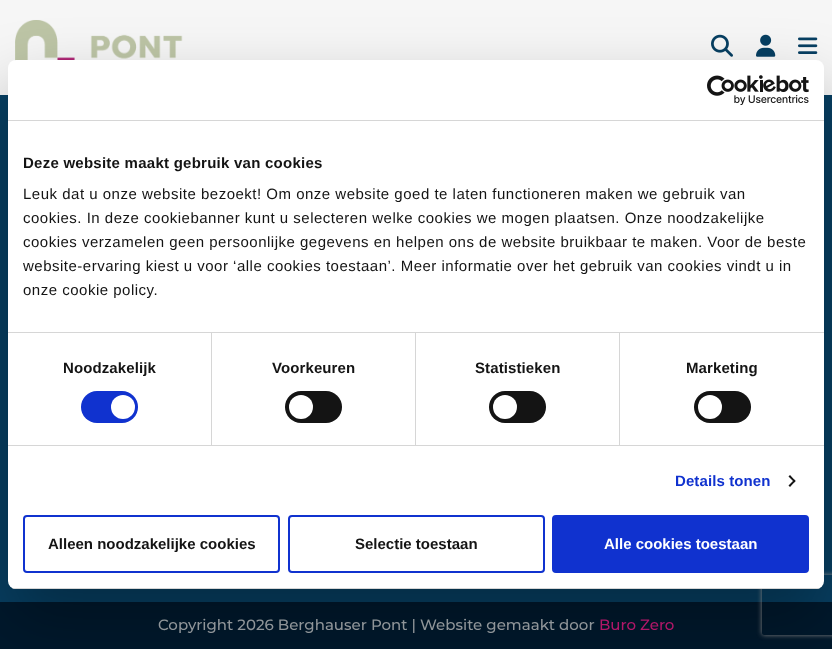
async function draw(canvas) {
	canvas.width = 832;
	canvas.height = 649;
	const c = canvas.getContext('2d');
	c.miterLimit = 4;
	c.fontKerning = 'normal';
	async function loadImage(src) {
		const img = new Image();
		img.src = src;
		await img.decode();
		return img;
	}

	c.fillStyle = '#073f62';
	c.fillRect(0, 0, 832, 649);
	c.fillStyle = '#f6f6f6';
	c.fillRect(0, 0, 832, 95);
	c.drawImage(await loadImage('img1.png'), 15, 20, 168, 41);
	c.drawImage(await loadImage('img2.png'), 711, 34, 22, 23);
	c.drawImage(await loadImage('img3.png'), 756, 34, 20, 23);
	c.drawImage(await loadImage('img4.png'), 798, 37, 20, 17);
	c.fillStyle = '#00192d';
	c.fillRect(0, 602, 832, 47);
	c.fillStyle = '#0000004d';
	c.filter = 'blur(34px)';
	c.beginPath();
	c.roundRect(8, 92, 816, 529, 8);
	c.fill();
	c.filter = 'none';
	c.save();
	c.beginPath();
	c.moveTo(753, 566);
	c.lineTo(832, 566);
	c.lineTo(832, 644);
	c.lineTo(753, 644);
	c.closePath();
	c.moveTo(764, 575);
	c.lineTo(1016, 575);
	c.bezierCurveTo(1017, 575, 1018, 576, 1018, 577);
	c.lineTo(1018, 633);
	c.bezierCurveTo(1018, 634, 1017, 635, 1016, 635);
	c.lineTo(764, 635);
	c.bezierCurveTo(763, 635, 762, 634, 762, 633);
	c.lineTo(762, 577);
	c.bezierCurveTo(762, 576, 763, 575, 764, 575);
	c.closePath();
	c.clip('evenodd');
	c.fillStyle = '#808080';
	c.filter = 'blur(2.5px)';
	c.beginPath();
	c.roundRect(762, 575, 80, 60, 2);
	c.fill();
	c.filter = 'none';
	c.restore();
	c.fillStyle = '#fff';
	c.beginPath();
	c.roundRect(8, 60, 816, 529, 8);
	c.fill();
	c.fillStyle = '#d6d6d6';
	c.fillRect(8, 120, 816, 1);
	c.drawImage(await loadImage('img5.png'), 707, 75, 102, 30);
	c.fillRect(8, 332, 816, 1);
	c.letterSpacing = '0.25px';
	c.font = 'bold 15px Liberation Sans';
	c.fillStyle = '#141414';
	c.fillText('Deze website maakt gebruik van cookies', 23, 168);
	c.letterSpacing = '0.5px';
	c.font = '15px Liberation Sans';
	for (const [text, x, y] of [
		['Leuk dat u onze website bezoekt! Om onze website goed te laten functioneren maken we gebruik van', 23, 199],
		['cookies. In deze cookiebanner kunt u selecteren welke cookies we mogen plaatsen. Onze noodzakelijke', 23, 223],
		['cookies verzamelen geen persoonlijke gegevens en helpen ons de website bruikbaar te maken. Voor de beste', 23, 247],
		['website-ervaring kiest u voor ‘alle cookies toestaan’. Meer informatie over het gebruik van cookies vindt u in', 23, 271],
		['onze cookie policy.', 23, 295],
	]) {
		c.fillText(text, x, y);
	}
	c.fillStyle = '#d6d6d6';
	c.fillRect(8, 445, 816, 1);
	c.fillRect(211, 333, 1, 112);
	c.letterSpacing = '0.1px';
	c.font = 'bold 15px Liberation Sans';
	c.fillStyle = '#141414';
	c.fillText('Noodzakelijk', 63, 373);
	c.fillStyle = '#1032cf';
	c.beginPath();
	c.roundRect(81, 391, 57, 32, 16);
	c.fill();
	c.fillStyle = '#fff';
	c.beginPath();
	c.arc(123, 407, 12, 0, 2 * Math.PI);
	c.fill();
	c.fillStyle = '#d6d6d6';
	c.fillRect(415, 333, 1, 112);
	c.fillStyle = '#141414';
	c.fillText('Voorkeuren', 272, 373);
	c.beginPath();
	c.roundRect(285, 391, 57, 32, 16);
	c.fill();
	c.fillStyle = '#fff';
	c.beginPath();
	c.arc(301, 407, 12, 0, 2 * Math.PI);
	c.fill();
	c.fillStyle = '#d6d6d6';
	c.fillRect(619, 333, 1, 112);
	c.fillStyle = '#141414';
	c.fillText('Statistieken', 475, 373);
	c.beginPath();
	c.roundRect(489, 391, 57, 32, 16);
	c.fill();
	c.fillStyle = '#fff';
	c.beginPath();
	c.arc(505, 407, 12, 0, 2 * Math.PI);
	c.fill();
	c.fillStyle = '#141414';
	c.fillText('Marketing', 686, 373);
	c.beginPath();
	c.roundRect(694, 391, 57, 32, 16);
	c.fill();
	c.fillStyle = '#fff';
	c.beginPath();
	c.arc(710, 407, 12, 0, 2 * Math.PI);
	c.fill();
	c.fillStyle = '#1032cf';
	c.fillText('Details tonen', 675, 486);
	c.fillStyle = '#141414';
	c.beginPath();
	c.moveTo(790, 475);
	c.lineTo(795.5, 481);
	c.lineTo(794.5, 482.5);
	c.lineTo(788.5, 476.5);
	c.closePath();
	c.fill();
	c.beginPath();
	c.moveTo(794.5, 479.5);
	c.lineTo(795.5, 481);
	c.lineTo(790, 487);
	c.lineTo(788.5, 485.5);
	c.closePath();
	c.fill();
	c.save();
	c.beginPath();
	c.roundRect(8, 60, 816, 529, 8);
	c.clip();
	c.fillStyle = '#d6d6d6';
	c.fillRect(8, 588, 816, 1);
	c.restore();
	c.beginPath();
	c.roundRect(24, 516, 255, 56, 3);
	c.strokeStyle = '#1032cf';
	c.lineWidth = 2;
	c.stroke();
	c.letterSpacing = '0px';
	c.fillText('Alleen noodzakelijke cookies', 48, 549);
	c.beginPath();
	c.roundRect(289, 516, 255, 56, 3);
	c.stroke();
	c.fillText('Selectie toestaan', 355, 549);
	c.fillStyle = '#1032cf';
	c.beginPath();
	c.roundRect(553, 516, 255, 56, 3);
	c.fill();
	c.stroke();
	c.fillStyle = '#fff';
	c.fillText('Alle cookies toestaan', 604, 549);
	c.font = '500 15px Montserrat';
	c.fillStyle = '#8f9599';
	c.fillText('Copyright 2026 Berghauser Pont | Website gemaakt door', 158, 630);
	c.fillStyle = '#b11769';
	c.fillText('Buro Zero', 599, 630);
}

draw(document.querySelector('canvas'));
